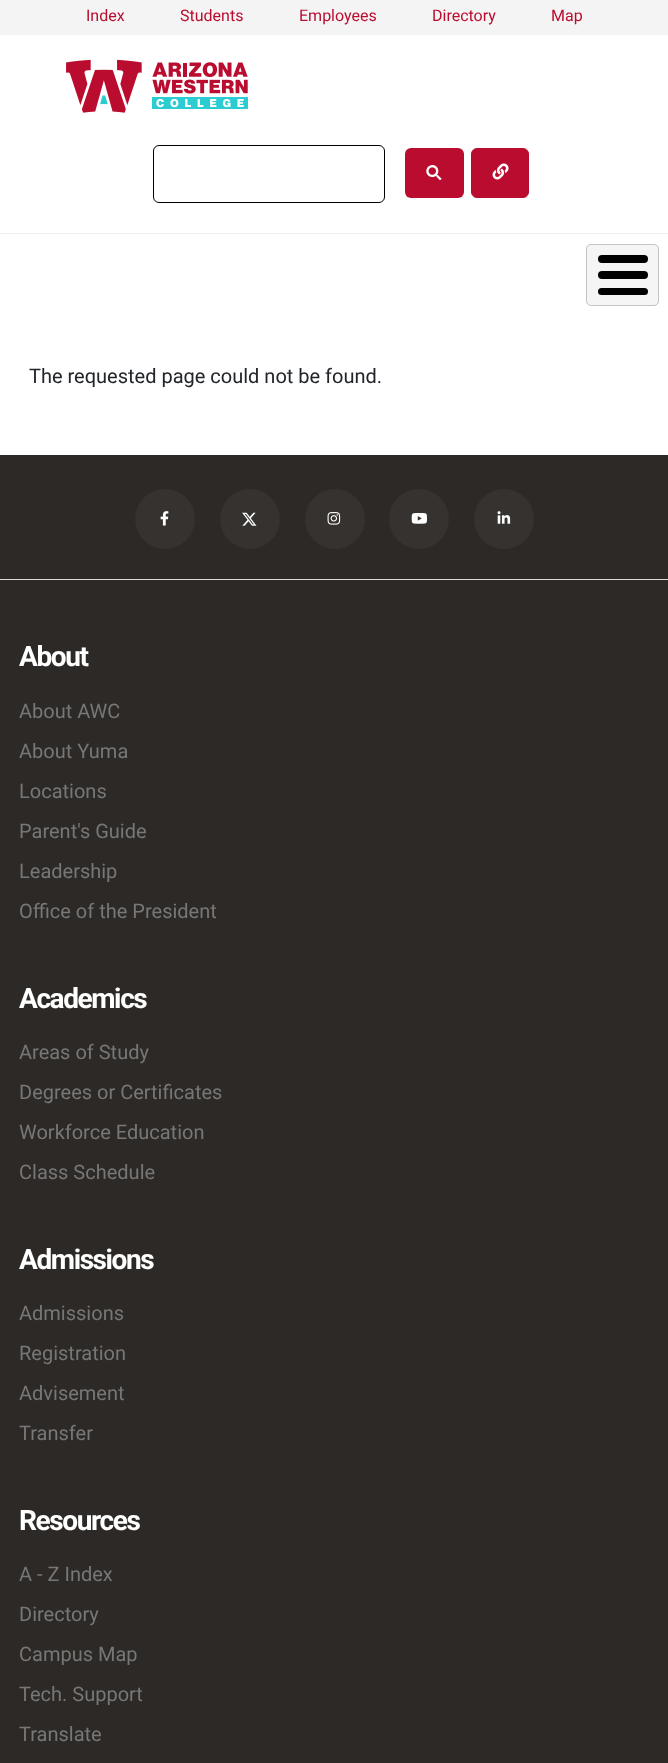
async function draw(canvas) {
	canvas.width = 668;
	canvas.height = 1763;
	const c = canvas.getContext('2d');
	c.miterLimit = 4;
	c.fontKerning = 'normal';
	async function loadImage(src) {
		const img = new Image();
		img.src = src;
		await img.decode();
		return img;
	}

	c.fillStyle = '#fff';
	c.fillRect(0, 0, 668, 1763);
	c.fillStyle = '#f4f4f4';
	c.fillRect(0, 0, 668, 35);
	c.font = '16px Roboto';
	c.fillStyle = '#ba0c2f';
	for (const [text, x, y] of [
		['Index', 86, 21],
		['Students', 180, 21],
		['Employees', 299, 21],
		['Directory', 432, 21],
		['Map', 551, 21],
	]) {
		c.fillText(text, x, y);
	}
	c.drawImage(await loadImage('img1.png'), 66, 59, 182, 54);
	c.beginPath();
	c.roundRect(153.5, 145.5, 231, 57, 5.5);
	c.strokeStyle = '#000';
	c.stroke();
	c.beginPath();
	c.roundRect(405, 148, 59, 50, 6);
	c.fill();
	c.drawImage(await loadImage('img2.png'), 426, 165, 16, 15);
	c.beginPath();
	c.roundRect(471.5, 148.5, 57, 49, 5.5);
	c.fill();
	c.strokeStyle = '#ba0c2f';
	c.stroke();
	c.drawImage(await loadImage('img3.png'), 492, 163, 17, 17);
	c.fillStyle = '#f0f0f0';
	c.fillRect(0, 233, 668, 1);
	c.fillStyle = '#f5f5f5';
	c.beginPath();
	c.roundRect(586, 244, 73, 62, 5);
	c.fill();
	c.beginPath();
	c.roundRect(586.5, 244.5, 72, 61, 4.5);
	c.strokeStyle = '#00000033';
	c.stroke();
	c.fillStyle = '#000';
	c.beginPath();
	c.roundRect(598, 255, 50, 8, 4);
	c.fill();
	c.beginPath();
	c.roundRect(598, 271, 50, 8, 4);
	c.fill();
	c.beginPath();
	c.roundRect(598, 288, 50, 7, 3.5);
	c.fill();
	c.font = '20px Roboto';
	c.fillStyle = '#212529';
	c.fillText('The requested page could not be found.', 29, 383);
	c.fillStyle = '#2d2926';
	c.fillRect(0, 455, 668, 1308);
	c.fillStyle = '#35322f';
	c.beginPath();
	c.arc(165, 519, 30, 0, 2 * Math.PI);
	c.fill();
	c.drawImage(await loadImage('img4.png'), 160, 511, 9, 15);
	c.beginPath();
	c.arc(250, 519, 30, 0, 2 * Math.PI);
	c.fill();
	c.drawImage(await loadImage('img5.png'), 242, 512, 15, 14);
	c.beginPath();
	c.arc(335, 519, 30, 0, 2 * Math.PI);
	c.fill();
	c.drawImage(await loadImage('img6.png'), 327, 512, 14, 13);
	c.beginPath();
	c.arc(419, 519, 30, 0, 2 * Math.PI);
	c.fill();
	c.drawImage(await loadImage('img7.png'), 411, 512, 16, 12);
	c.beginPath();
	c.arc(504, 519, 30, 0, 2 * Math.PI);
	c.fill();
	c.drawImage(await loadImage('img8.png'), 497, 511, 14, 13);
	c.fillStyle = '#dadada';
	c.fillRect(0, 579, 668, 1);
	c.letterSpacing = '-1.4px';
	c.font = 'bold 28px Roboto';
	c.fillStyle = '#fff';
	c.fillText('About', 19, 666);
	c.letterSpacing = '0px';
	c.font = '20px Roboto';
	c.fillStyle = '#777';
	for (const [text, x, y] of [
		['About AWC', 19, 718],
		['About Yuma', 19, 758],
		['Locations', 19, 798],
		['Parent\'s Guide', 19, 838],
		['Leadership', 19, 878],
		['Office of the President', 19, 918],
	]) {
		c.fillText(text, x, y);
	}
	c.letterSpacing = '-1.4px';
	c.font = 'bold 28px Roboto';
	c.fillStyle = '#fff';
	c.fillText('Academics', 19, 1008);
	c.letterSpacing = '0px';
	c.font = '20px Roboto';
	c.fillStyle = '#777';
	for (const [text, x, y] of [
		['Areas of Study', 19, 1059],
		['Degrees or Certificates', 19, 1099],
		['Workforce Education', 19, 1139],
		['Class Schedule', 19, 1179],
	]) {
		c.fillText(text, x, y);
	}
	c.letterSpacing = '-1.4px';
	c.font = 'bold 28px Roboto';
	c.fillStyle = '#fff';
	c.fillText('Admissions', 19, 1269);
	c.letterSpacing = '0px';
	c.font = '20px Roboto';
	c.fillStyle = '#777';
	for (const [text, x, y] of [
		['Admissions', 19, 1320],
		['Registration', 19, 1360],
		['Advisement', 19, 1400],
		['Transfer', 19, 1440],
	]) {
		c.fillText(text, x, y);
	}
	c.letterSpacing = '-1.4px';
	c.font = 'bold 28px Roboto';
	c.fillStyle = '#fff';
	c.fillText('Resources', 19, 1530);
	c.letterSpacing = '0px';
	c.font = '20px Roboto';
	c.fillStyle = '#777';
	for (const [text, x, y] of [
		['A - Z Index', 19, 1581],
		['Directory', 19, 1621],
		['Campus Map', 19, 1661],
		['Tech. Support', 19, 1701],
		['Translate', 19, 1741],
	]) {
		c.fillText(text, x, y);
	}
}

draw(document.querySelector('canvas'));
